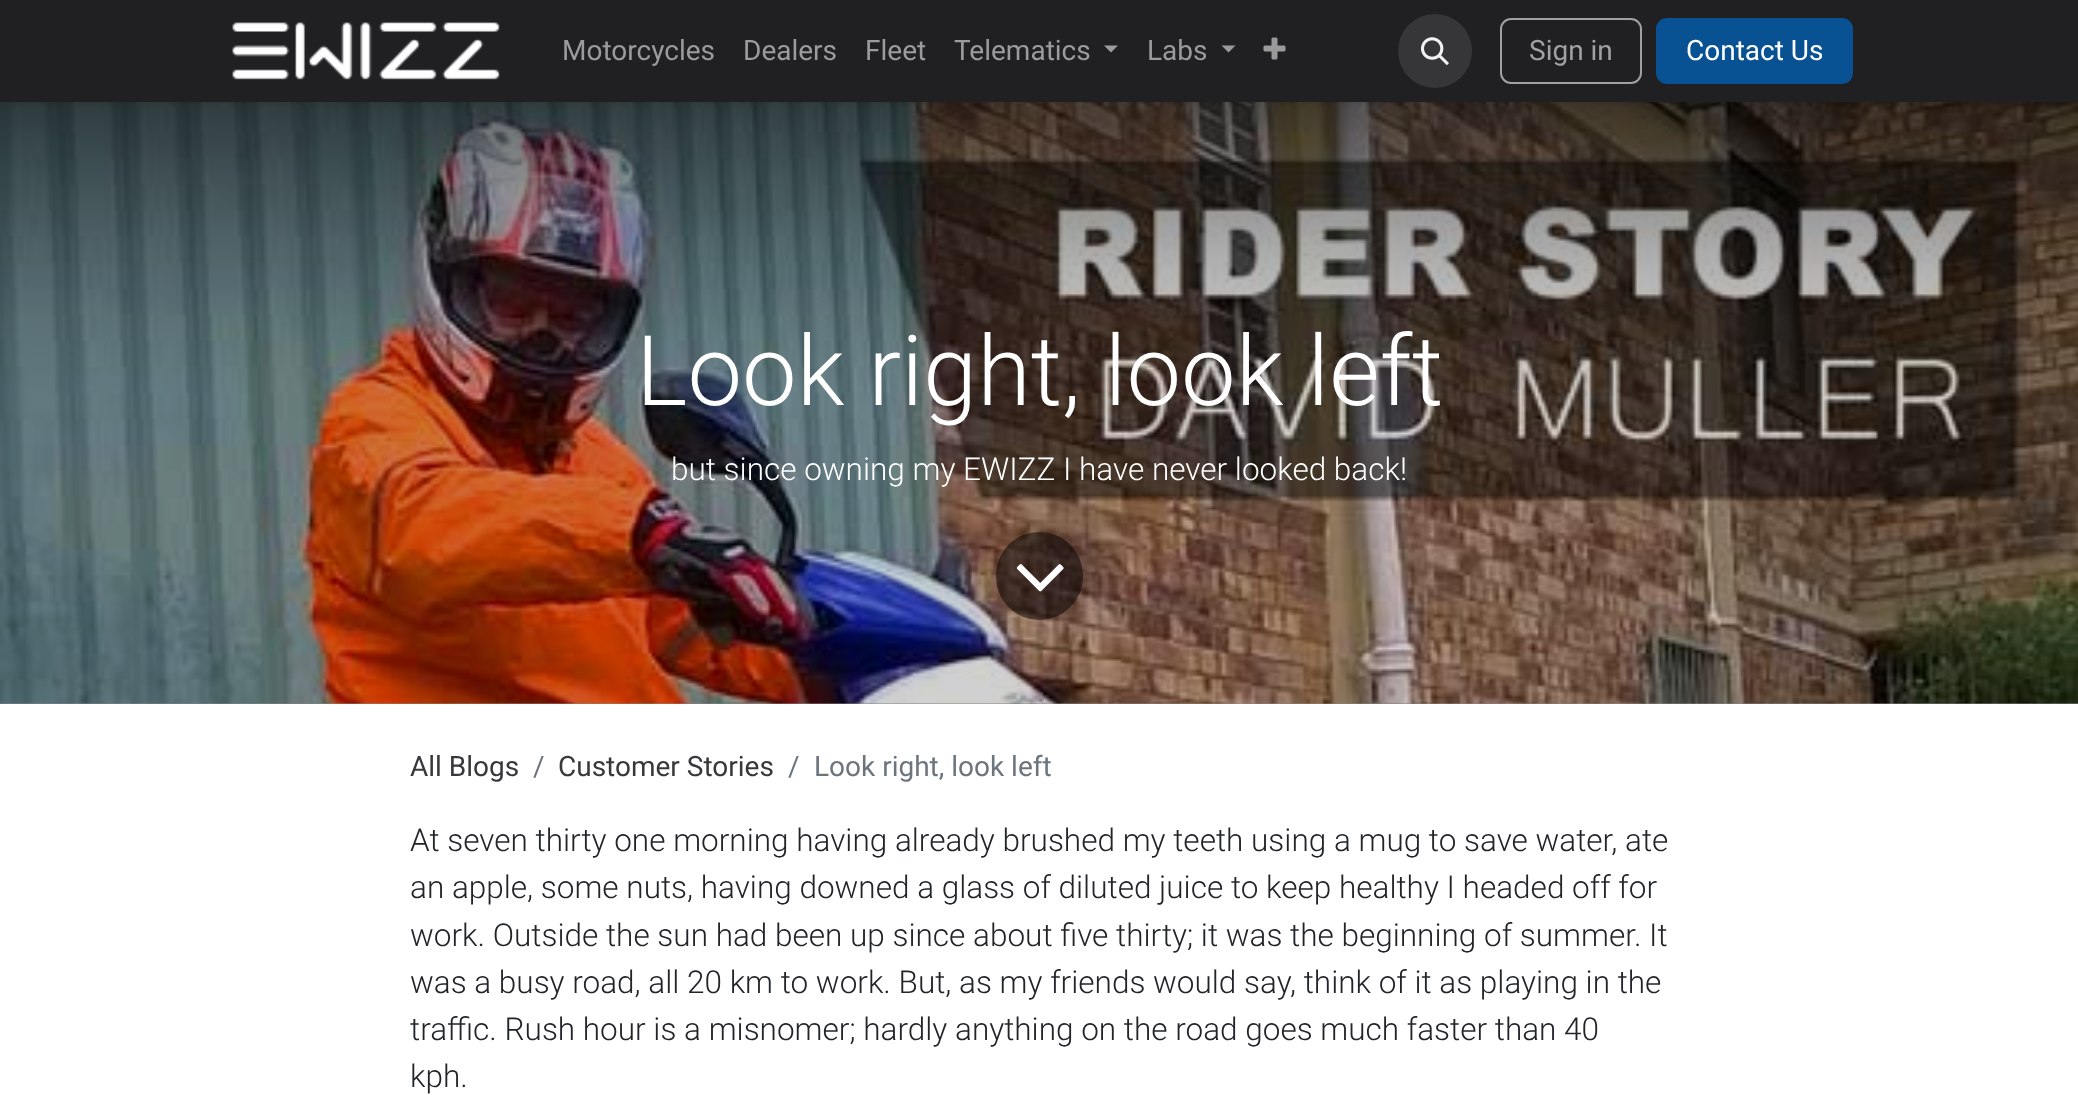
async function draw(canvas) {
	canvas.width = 2078;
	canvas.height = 1095;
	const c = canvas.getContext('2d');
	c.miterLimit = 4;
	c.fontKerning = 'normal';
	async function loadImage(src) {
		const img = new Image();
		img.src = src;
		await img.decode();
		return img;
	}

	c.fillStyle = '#fff';
	c.fillRect(0, 0, 2078, 1095);
	c.fillStyle = '#848484';
	c.fillRect(0, 703, 2078, 1);
	c.drawImage(await loadImage('img4.png'), 0, 102, 2078, 602);
	c.fillStyle = '#0000001a';
	c.filter = 'blur(2.5px)';
	c.beginPath();
	c.rect(0, 2, 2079, 101);
	c.fill();
	c.filter = 'none';
	c.fillStyle = '#202022';
	c.fillRect(0, 0, 2078, 102);
	c.drawImage(await loadImage('img1.png'), 232, 22, 268, 58);
	c.font = '28px Roboto';
	c.fillStyle = '#9b9b9c';
	for (const [text, x, y] of [
		['Motorcycles', 562, 60],
		['Dealers', 743, 60],
		['Fleet', 865, 60],
		['Telematics', 954, 60],
	]) {
		c.fillText(text, x, y);
	}
	c.beginPath();
	c.moveTo(1104, 45.5);
	c.lineTo(1118, 45.5);
	c.lineTo(1111, 52.5);
	c.closePath();
	c.fill();
	c.fillText('Labs', 1147, 60);
	c.beginPath();
	c.moveTo(1221.5, 45.5);
	c.lineTo(1235.5, 45.5);
	c.lineTo(1228.5, 52.5);
	c.closePath();
	c.fill();
	c.drawImage(await loadImage('img2.png'), 1263, 37, 23, 23);
	c.fillStyle = '#363638';
	c.beginPath();
	c.arc(1435, 51, 37, 0, 2 * Math.PI);
	c.fill();
	c.drawImage(await loadImage('img3.png'), 1421, 37, 28, 29);
	c.beginPath();
	c.roundRect(1501, 19, 140, 64, 10);
	c.strokeStyle = '#a1a1a1';
	c.lineWidth = 2;
	c.stroke();
	c.fillStyle = '#a1a1a1';
	c.fillText('Sign in', 1529, 60);
	c.fillStyle = '#085294';
	c.beginPath();
	c.roundRect(1657, 19, 195, 64, 10);
	c.fill();
	c.strokeStyle = '#085294';
	c.stroke();
	c.fillStyle = '#fff';
	c.fillText('Contact Us', 1686, 60);
	c.font = '300 97.5px Roboto';
	c.fillText('Look right, look left', 636, 405);
	c.font = '300 31.5px Roboto';
	c.fillText('but since owning my EWIZZ I have never looked back!', 671, 480);
	c.fillStyle = '#00000080';
	c.beginPath();
	c.roundRect(996, 532, 87, 88, 43.5);
	c.fill();
	c.drawImage(await loadImage('img5.png'), 1016, 564, 48, 28);
	c.font = '28px Roboto';
	c.fillStyle = '#38383b';
	c.fillText('All Blogs', 410, 776);
	c.fillStyle = '#6c757d';
	c.fillText('/', 533, 776);
	c.fillStyle = '#38383b';
	c.fillText('Customer Stories', 558, 776);
	c.fillStyle = '#6c757d';
	c.fillText('/', 788, 776);
	c.fillText('Look right, look left', 814, 776);
	c.font = '300 31.5px Roboto';
	c.fillStyle = '#212529';
	for (const [text, x, y] of [
		['At seven thirty one morning having already brushed my teeth using a mug to save water, ate', 410, 851],
		['an apple, some nuts, having downed a glass of diluted juice to keep healthy I headed off for', 410, 898],
		['work. Outside the sun had been up since about five thirty; it was the beginning of summer. It', 410, 946],
		['was a busy road, all 20 km to work. But, as my friends would say, think of it as playing in the', 410, 993],
		['traffic. Rush hour is a misnomer; hardly anything on the road goes much faster than 40', 410, 1040],
		['kph.', 410, 1087],
	]) {
		c.fillText(text, x, y);
	}
}

draw(document.querySelector('canvas'));
